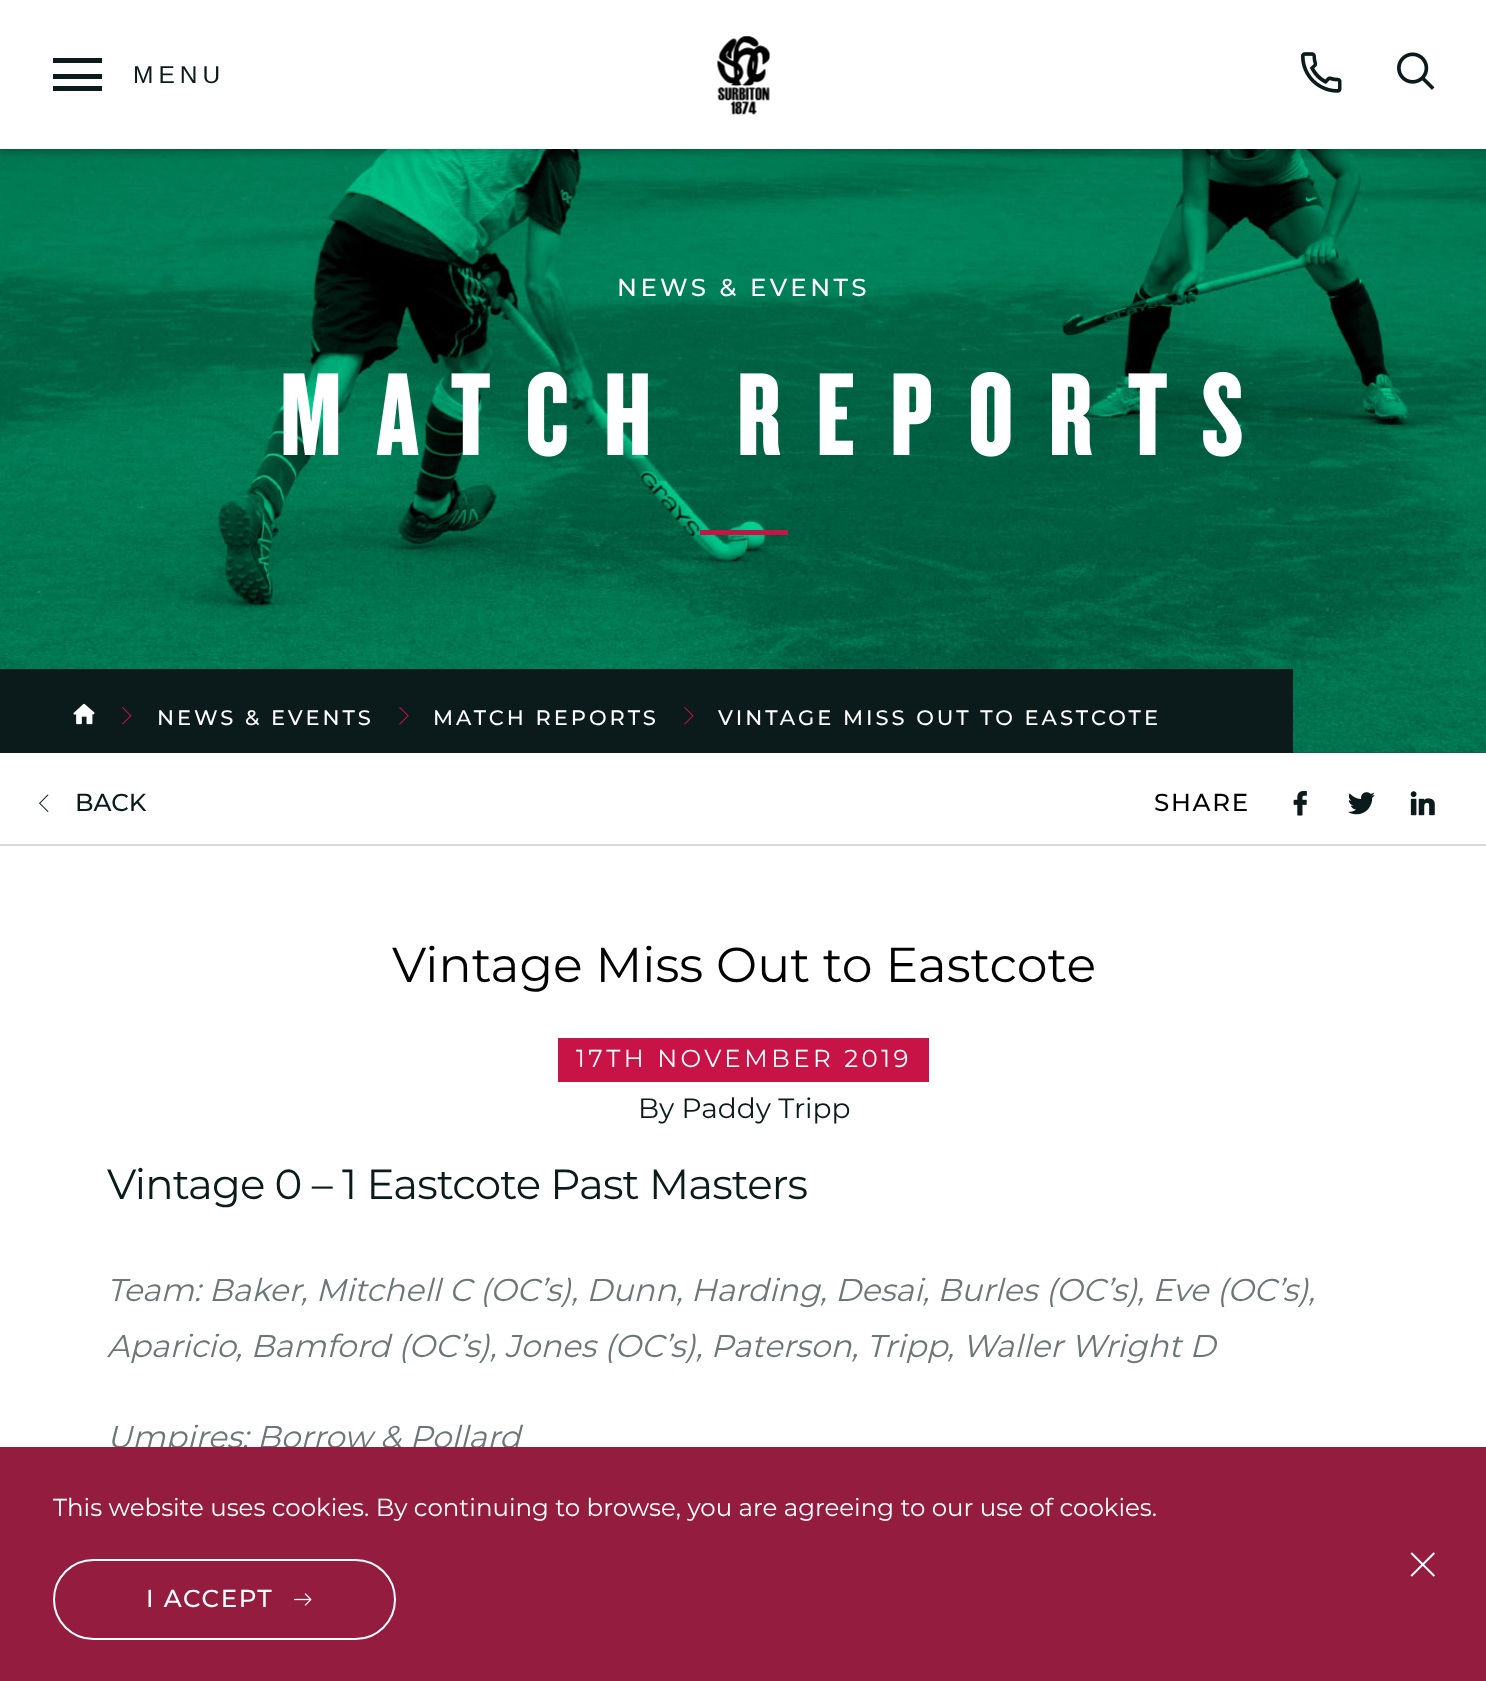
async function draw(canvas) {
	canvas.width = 1486;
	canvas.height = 1681;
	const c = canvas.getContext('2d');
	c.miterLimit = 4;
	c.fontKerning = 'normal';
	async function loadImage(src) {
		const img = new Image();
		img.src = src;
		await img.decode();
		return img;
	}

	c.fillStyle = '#1b5450';
	c.fillRect(0, 0, 1486, 1681);
	c.drawImage(await loadImage('img4.png'), 0, 149, 1486, 604);
	c.fillStyle = '#00000040';
	c.filter = 'blur(3.5px)';
	c.beginPath();
	c.rect(0, 4, 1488, 148);
	c.fill();
	c.filter = 'none';
	for (const [x, y, w, h, color] of [
		[0, 0, 1486, 149, '#fff'],
		[53, 74, 49, 5, '#0b1a1b'],
		[53, 58, 49, 5, '#0b1a1b'],
		[53, 86, 49, 5, '#0b1a1b'],
	]) {
		c.fillStyle = color;
		c.fillRect(x, y, w, h);
	}
	c.letterSpacing = '5px';
	c.font = '24.5px Liberation Sans';
	c.fillText('MENU', 133, 83);
	c.drawImage(await loadImage('img1.png'), 717, 35, 54, 80);
	c.drawImage(await loadImage('img2.png'), 1301, 52, 41, 41);
	c.drawImage(await loadImage('img3.png'), 1397, 52, 38, 38);
	c.letterSpacing = '3.5px';
	c.font = '500 24.5px Montserrat';
	c.fillStyle = '#fff';
	c.fillText('NEWS & EVENTS', 617, 296);
	c.drawImage(await loadImage('img5.png'), 283, 371, 959, 86);
	c.fillStyle = '#c71346';
	c.fillRect(700, 530, 88, 5);
	c.fillStyle = '#0b1a1b';
	c.fillRect(0, 669, 1293, 84);
	c.drawImage(await loadImage('img6.png'), 73, 703, 22, 22);
	c.drawImage(await loadImage('img7.png'), 122, 707, 10, 18);
	c.letterSpacing = '3px';
	c.font = '500 21px Montserrat';
	c.fillStyle = '#fff';
	c.fillText('NEWS & EVENTS', 157, 725);
	c.drawImage(await loadImage('img8.png'), 399, 707, 10, 18);
	c.fillText('MATCH REPORTS', 433, 725);
	c.drawImage(await loadImage('img9.png'), 684, 707, 10, 18);
	c.fillText('VINTAGE MISS OUT TO EASTCOTE', 718, 725);
	c.fillRect(0, 753, 1486, 91);
	c.fillStyle = '#d8d8d8';
	c.fillRect(0, 844, 1486, 2);
	c.drawImage(await loadImage('img10.png'), 39, 794, 10, 18);
	c.letterSpacing = '0px';
	c.font = '500 24.5px Montserrat';
	c.fillStyle = '#0b1a1b';
	c.fillText('BACK', 75, 811);
	c.letterSpacing = '1.75px';
	c.fillStyle = '#000';
	c.fillText('SHARE', 1154, 811);
	c.drawImage(await loadImage('img11.png'), 1293, 791, 14, 25);
	c.drawImage(await loadImage('img12.png'), 1348, 792, 27, 23);
	c.drawImage(await loadImage('img13.png'), 1410, 791, 25, 25);
	c.fillStyle = '#fff';
	c.fillRect(0, 846, 1486, 601);
	c.letterSpacing = '0px';
	c.font = '49px Montserrat';
	c.fillStyle = '#000';
	c.fillText('Vintage Miss Out to Eastcote', 392, 982);
	c.fillStyle = '#c71346';
	c.fillRect(558, 1038, 371, 44);
	c.letterSpacing = '3.5px';
	c.font = '24.5px Montserrat';
	c.fillStyle = '#fff';
	c.fillText('17TH NOVEMBER 2019', 576, 1067);
	c.letterSpacing = '0px';
	c.font = '28px Montserrat';
	c.fillStyle = '#0b1a1b';
	c.fillText('By Paddy Tripp', 638, 1118);
	c.letterSpacing = '-0.85px';
	c.font = '42px Montserrat';
	c.fillText('Vintage 0 – 1 Eastcote Past Masters', 107, 1199);
	c.letterSpacing = '0px';
	c.font = 'italic 31.5px Montserrat';
	c.fillStyle = '#6d7676';
	for (const [text, x, y] of [
		['Team: Baker, Mitchell C (OC’s), Dunn, Harding, Desai, Burles (OC’s), Eve (OC’s),', 107, 1301],
		['Aparicio, Bamford (OC’s), Jones (OC’s), Paterson, Tripp, Waller Wright D', 107, 1357],
		['Umpires: Borrow & Pollard', 107, 1448],
	]) {
		c.fillText(text, x, y);
	}
	c.fillStyle = '#941c3f';
	c.fillRect(0, 1447, 1486, 234);
	c.font = '24.5px Montserrat';
	c.fillStyle = '#fff';
	c.fillText('This website uses cookies. By continuing to browse, you are agreeing to our use of cookies.', 53, 1516);
	c.drawImage(await loadImage('img14.png'), 1410, 1552, 25, 25);
	c.beginPath();
	c.roundRect(54, 1560, 341, 79, 39.5);
	c.strokeStyle = '#fff';
	c.lineWidth = 2;
	c.stroke();
	c.letterSpacing = '1.75px';
	c.font = '500 24.5px Montserrat';
	c.fillText('I ACCEPT', 146, 1607);
	c.drawImage(await loadImage('img15.png'), 294, 1593, 18, 13);
}

draw(document.querySelector('canvas'));
